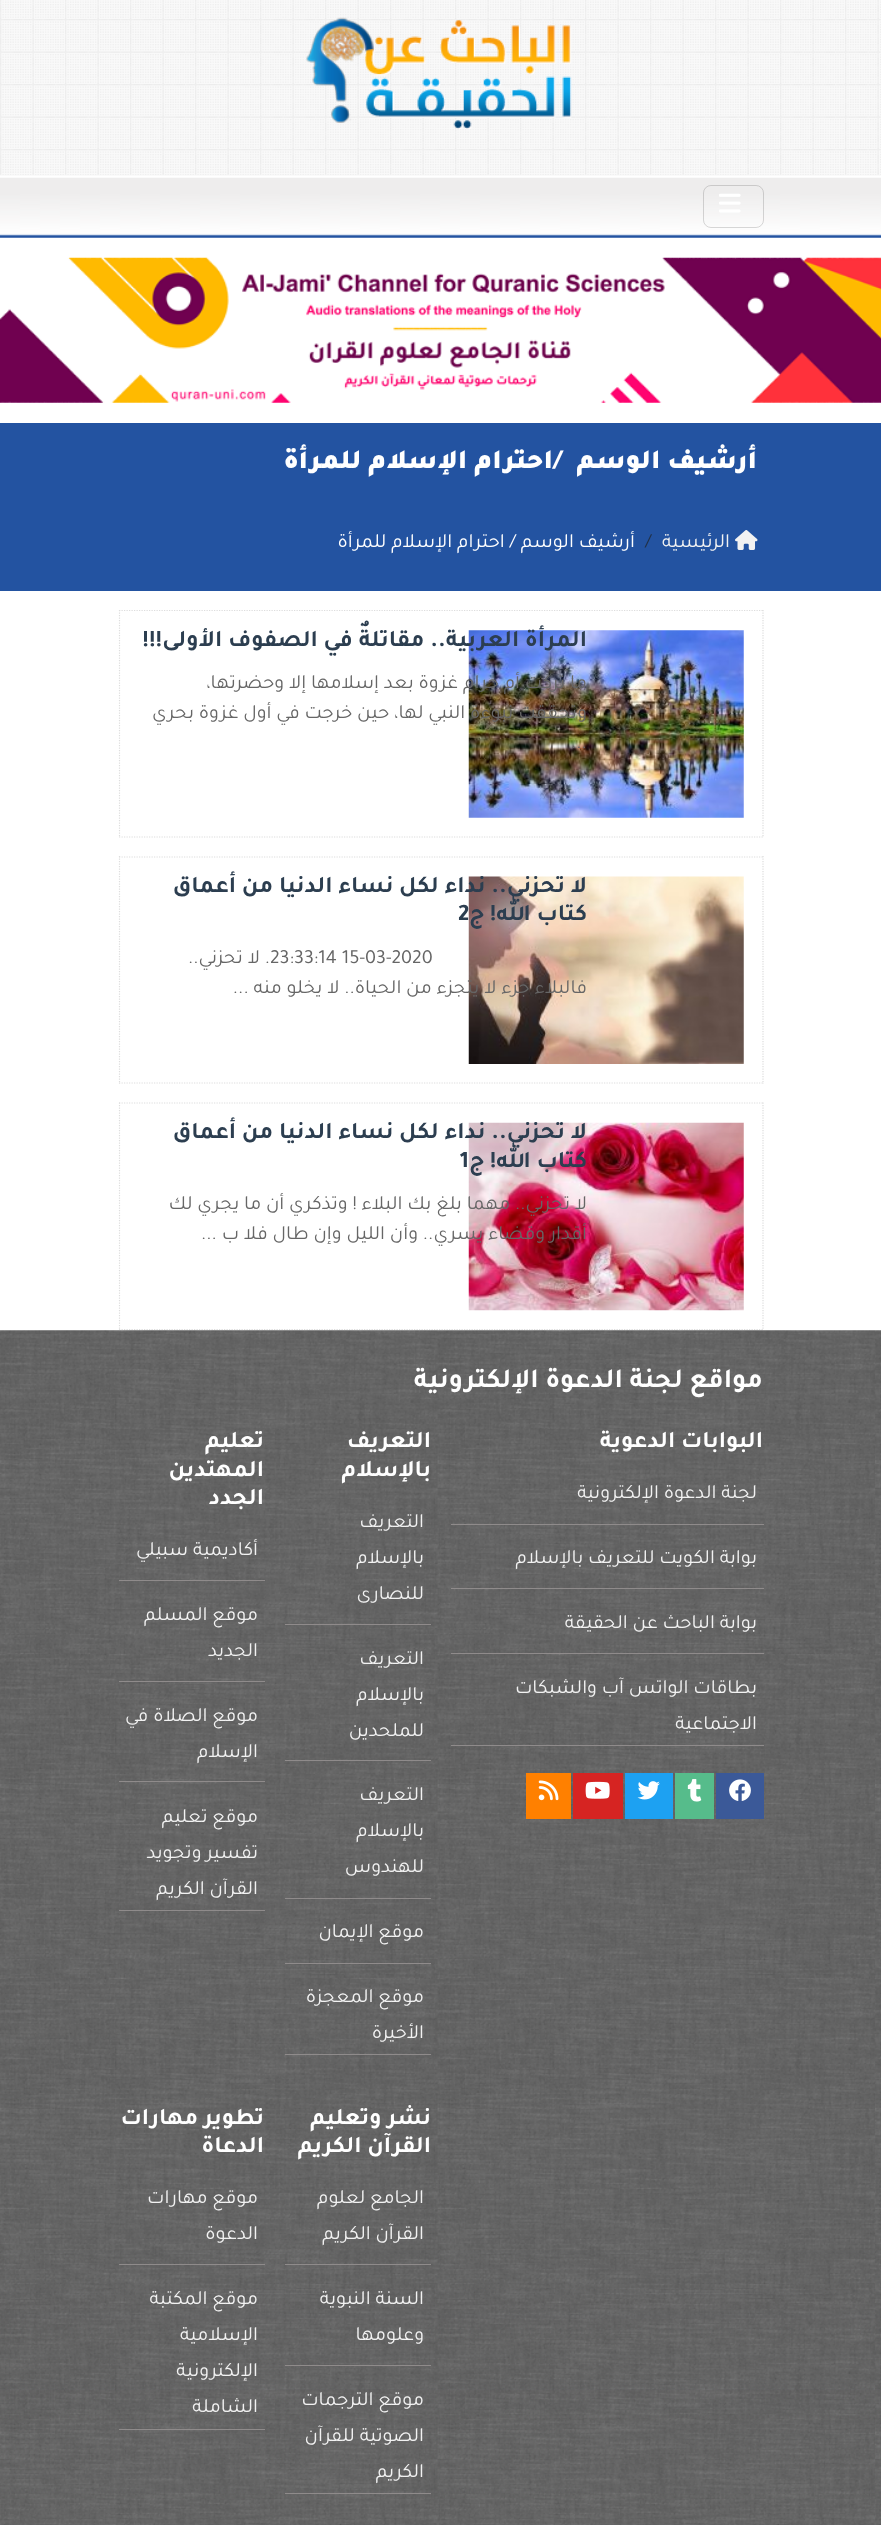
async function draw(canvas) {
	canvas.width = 881;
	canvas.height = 2525;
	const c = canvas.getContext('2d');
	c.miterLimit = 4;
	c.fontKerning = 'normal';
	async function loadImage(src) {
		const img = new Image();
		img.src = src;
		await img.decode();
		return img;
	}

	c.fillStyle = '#fff';
	c.fillRect(0, 0, 881, 2525);
	c.drawImage(await loadImage('img1.png'), 0, 0, 881, 175);
	c.drawImage(await loadImage('img2.png'), 306, 17, 266, 112);
	c.fillStyle = '#fafafa';
	c.fillRect(0, 175, 881, 63);
	c.drawImage(await loadImage('img3.png'), 0, 176, 881, 62);
	c.beginPath();
	c.roundRect(703.5, 185.5, 60, 42, 7.5);
	c.strokeStyle = '#00000026';
	c.stroke();
	c.drawImage(await loadImage('img4.png'), 719, 193, 22, 20);
	c.drawImage(await loadImage('img5.png'), 0, 257, 881, 146);
	c.fillStyle = '#2353a1';
	c.fillRect(0, 423, 881, 168);
	c.direction = 'rtl';
	c.font = '900 27.5px Tajawal';
	c.fillStyle = '#fff';
	c.fillText('أرشيف الوسم', 757, 468);
	c.direction = 'ltr';
	c.fillText('/', 553, 468);
	c.direction = 'rtl';
	c.fillText('احترام الإسلام للمرأة', 553, 468);
	c.drawImage(await loadImage('img6.png'), 735, 530, 23, 20);
	c.font = '20px Tajawal';
	c.fillStyle = '#f2f2f2';
	c.fillText('الرئيسية', 730, 547);
	c.direction = 'ltr';
	c.fillStyle = '#223147';
	c.fillText('/', 645, 547);
	c.direction = 'rtl';
	c.fillStyle = '#fff';
	c.fillText('أرشيف الوسم', 635, 547);
	c.fillText('/ احترام الإسلام للمرأة', 516, 547);
	c.save();
	c.beginPath();
	c.rect(104, 610, 675, 720);
	c.clip();
	c.beginPath();
	c.moveTo(119, 610.5);
	c.lineTo(764, 610.5);
	c.strokeStyle = '#ddd';
	c.lineWidth = 1.2;
	c.setLineDash([1.25, 1.25]);
	c.stroke();
	c.restore();
	c.beginPath();
	c.moveTo(763, 610);
	c.lineTo(763, 837.5);
	c.strokeStyle = '#ddd';
	c.lineWidth = 1.2;
	c.setLineDash([1.25, 1.25]);
	c.stroke();
	c.beginPath();
	c.moveTo(119, 837);
	c.lineTo(764, 837);
	c.stroke();
	c.beginPath();
	c.moveTo(119.5, 610);
	c.lineTo(119.5, 837.5);
	c.stroke();
	c.drawImage(await loadImage('img7.png'), 468, 630, 276, 188);
	c.font = 'bold 23.75px Tajawal';
	c.fillStyle = '#2c3e50';
	c.fillText('المرأة العربية.. مقاتلةٌ في الصفوف الأولى!!!', 587, 646);
	c.font = '20px Tajawal';
	c.fillStyle = '#666';
	c.fillText('ما تركت أم حرام غزوة بعد إسلامها إلا وحضرتها،', 587, 688);
	c.fillText('وتحققت نبوءة النبي لها، حين خرجت في أول غزوة بحري', 587, 718);
	c.direction = 'ltr';
	c.fillText('...', 571, 748);
	c.beginPath();
	c.moveTo(119, 857);
	c.lineTo(764, 857);
	c.stroke();
	c.beginPath();
	c.moveTo(763, 856);
	c.lineTo(763, 1084);
	c.stroke();
	c.beginPath();
	c.moveTo(119, 1083);
	c.lineTo(764, 1083);
	c.stroke();
	c.beginPath();
	c.moveTo(119.5, 856);
	c.lineTo(119.5, 1084);
	c.stroke();
	c.drawImage(await loadImage('img8.png'), 468, 876, 276, 188);
	c.direction = 'rtl';
	c.font = 'bold 23.75px Tajawal';
	c.fillStyle = '#2c3e50';
	c.fillText('لا تحزني.. نداء لكل نساء الدنيا من أعماق', 587, 892);
	c.fillText('كتاب الله! ج', 587, 920);
	c.direction = 'ltr';
	c.fillText('2', 458, 920);
	c.font = '20px Tajawal';
	c.fillStyle = '#666';
	c.fillText('23:33:14 15-03-2020', 270, 963);
	c.direction = 'rtl';
	c.fillText('. لا تحزني..', 270, 963);
	c.fillText('فالبلاء جزء لا يتجزء من الحياة.. لا يخلو منه ...', 587, 993);
	c.beginPath();
	c.moveTo(119, 1103);
	c.lineTo(764, 1103);
	c.stroke();
	c.beginPath();
	c.moveTo(763, 1102.5);
	c.lineTo(763, 1330);
	c.stroke();
	c.save();
	c.beginPath();
	c.rect(104, 610, 675, 720);
	c.clip();
	c.beginPath();
	c.moveTo(119, 1329.5);
	c.lineTo(764, 1329.5);
	c.stroke();
	c.restore();
	c.beginPath();
	c.moveTo(119.5, 1102.5);
	c.lineTo(119.5, 1330);
	c.stroke();
	c.drawImage(await loadImage('img9.png'), 468, 1122, 276, 189);
	c.font = 'bold 23.75px Tajawal';
	c.fillStyle = '#2c3e50';
	c.fillText('لا تحزني.. نداء لكل نساء الدنيا من أعماق', 587, 1138);
	c.fillText('كتاب الله! ج', 587, 1167);
	c.direction = 'ltr';
	c.fillText('1', 460, 1167);
	c.direction = 'rtl';
	c.font = '20px Tajawal';
	c.fillStyle = '#666';
	c.fillText('لا تحزني.. مهما بلغ بك البلاء ! وتذكري أن ما يجري لك', 587, 1209);
	c.fillText('أقدار وقضاء يسري.. وأن الليل وإن طال فلا ب ...', 587, 1239);
	c.drawImage(await loadImage('img10.png'), 0, 1330, 881, 1195);
	c.font = 'bold 27.5px Tajawal';
	c.fillStyle = '#fff';
	c.fillText('مواقع لجنة الدعوة الإلكترونية', 763, 1387);
	c.font = 'bold 23.75px Tajawal';
	c.fillText('البوابات الدعوية', 763, 1447);
	c.fillStyle = '#8f8b8b';
	c.fillRect(451, 1524, 313, 1);
	c.font = '20px Tajawal';
	c.fillStyle = '#f2f2f2';
	c.fillText('لجنة الدعوة الإلكترونية', 757, 1498);
	c.fillStyle = '#8f8b8b';
	c.fillRect(451, 1588, 313, 1);
	c.fillStyle = '#f2f2f2';
	c.fillText('بوابة الكويت للتعريف بالإسلام', 757, 1563);
	c.fillStyle = '#8f8b8b';
	c.fillRect(451, 1653, 313, 1);
	c.fillStyle = '#f2f2f2';
	c.fillText('بوابة الباحث عن الحقيقة', 757, 1628);
	c.fillStyle = '#8f8b8b';
	c.fillRect(451, 1745, 313, 1);
	c.fillStyle = '#f2f2f2';
	c.fillText('بطاقات الواتس آب والشبكات', 757, 1693);
	c.fillText('الاجتماعية', 757, 1729);
	c.fillStyle = '#3b5998';
	c.fillRect(716, 1773, 48, 46);
	c.drawImage(await loadImage('img11.png'), 729, 1779, 22, 22);
	c.fillStyle = '#56bc8b';
	c.fillRect(675, 1773, 39, 46);
	c.drawImage(await loadImage('img12.png'), 687, 1779, 15, 23);
	c.fillStyle = '#1da1f2';
	c.fillRect(625, 1773, 48, 46);
	c.drawImage(await loadImage('img13.png'), 637, 1781, 23, 19);
	c.fillStyle = '#d62422';
	c.fillRect(573, 1773, 50, 46);
	c.drawImage(await loadImage('img14.png'), 585, 1781, 25, 18);
	c.fillStyle = '#ff8000';
	c.fillRect(526, 1773, 45, 46);
	c.drawImage(await loadImage('img15.png'), 538, 1780, 21, 21);
	c.font = 'bold 23.75px Tajawal';
	c.fillStyle = '#fff';
	c.fillText('التعريف', 431, 1447);
	c.fillText('بالإسلام', 431, 1476);
	c.fillStyle = '#8f8b8b';
	c.fillRect(285, 1624, 146, 1);
	c.font = '20px Tajawal';
	c.fillStyle = '#f2f2f2';
	for (const [text, x, y] of [
		['التعريف', 424, 1527],
		['بالإسلام', 424, 1563],
		['للنصارى', 424, 1599],
	]) {
		c.fillText(text, x, y);
	}
	c.fillStyle = '#8f8b8b';
	c.fillRect(285, 1760, 146, 1);
	c.fillStyle = '#f2f2f2';
	for (const [text, x, y] of [
		['التعريف', 424, 1664],
		['بالإسلام', 424, 1700],
		['للملحدين', 424, 1736],
	]) {
		c.fillText(text, x, y);
	}
	c.fillStyle = '#8f8b8b';
	c.fillRect(285, 1898, 146, 1);
	c.fillStyle = '#f2f2f2';
	for (const [text, x, y] of [
		['التعريف', 424, 1800],
		['بالإسلام', 424, 1836],
		['للهندوس', 424, 1872],
	]) {
		c.fillText(text, x, y);
	}
	c.fillStyle = '#8f8b8b';
	c.fillRect(285, 1963, 146, 1);
	c.fillStyle = '#f2f2f2';
	c.fillText('موقع الإيمان', 424, 1937);
	c.fillStyle = '#8f8b8b';
	c.fillRect(285, 2054, 146, 1);
	c.fillStyle = '#f2f2f2';
	c.fillText('موقع المعجزة', 424, 2002);
	c.fillText('الأخيرة', 424, 2038);
	c.font = 'bold 23.75px Tajawal';
	c.fillStyle = '#fff';
	for (const [text, x, y] of [
		['تعليم', 264, 1447],
		['المهتدين', 264, 1476],
		['الجدد', 264, 1504],
	]) {
		c.fillText(text, x, y);
	}
	c.fillStyle = '#8f8b8b';
	c.fillRect(119, 1580, 146, 1);
	c.font = '20px Tajawal';
	c.fillStyle = '#f2f2f2';
	c.fillText('أكاديمية سبيلي', 258, 1555);
	c.fillStyle = '#8f8b8b';
	c.fillRect(119, 1681, 146, 1);
	c.fillStyle = '#f2f2f2';
	c.fillText('موقع المسلم', 258, 1620);
	c.fillText('الجديد', 258, 1656);
	c.fillStyle = '#8f8b8b';
	c.fillRect(119, 1781, 146, 1);
	c.fillStyle = '#f2f2f2';
	c.fillText('موقع الصلاة في', 258, 1721);
	c.fillText('الإسلام', 258, 1757);
	c.fillStyle = '#8f8b8b';
	c.fillRect(119, 1910, 146, 1);
	c.fillStyle = '#f2f2f2';
	for (const [text, x, y] of [
		['موقع تعليم', 258, 1822],
		['تفسير وتجويد', 258, 1858],
		['القرآن الكريم', 258, 1894],
	]) {
		c.fillText(text, x, y);
	}
	c.font = 'bold 23.75px Tajawal';
	c.fillStyle = '#fff';
	c.fillText('نشر وتعليم', 431, 2124);
	c.fillText('القرآن الكريم', 431, 2152);
	c.fillStyle = '#8f8b8b';
	c.fillRect(285, 2264, 146, 1);
	c.font = '20px Tajawal';
	c.fillStyle = '#f2f2f2';
	c.fillText('الجامع لعلوم', 424, 2203);
	c.fillText('القرآن الكريم', 424, 2239);
	c.fillStyle = '#8f8b8b';
	c.fillRect(285, 2365, 146, 1);
	c.fillStyle = '#f2f2f2';
	c.fillText('السنة النبوية', 424, 2304);
	c.fillText('وعلومها', 424, 2340);
	c.fillStyle = '#8f8b8b';
	c.fillRect(285, 2493, 146, 1);
	c.fillStyle = '#f2f2f2';
	for (const [text, x, y] of [
		['موقع الترجمات', 424, 2405],
		['الصوتية للقرآن', 424, 2441],
		['الكريم', 424, 2477],
	]) {
		c.fillText(text, x, y);
	}
	c.font = 'bold 23.75px Tajawal';
	c.fillStyle = '#fff';
	c.fillText('تطوير مهارات', 264, 2124);
	c.fillText('الدعاة', 264, 2152);
	c.fillStyle = '#8f8b8b';
	c.fillRect(119, 2264, 146, 1);
	c.font = '20px Tajawal';
	c.fillStyle = '#f2f2f2';
	c.fillText('موقع مهارات', 258, 2203);
	c.fillText('الدعوة', 258, 2239);
	c.fillStyle = '#8f8b8b';
	c.fillRect(119, 2429, 146, 1);
	c.fillStyle = '#f2f2f2';
	for (const [text, x, y] of [
		['موقع المكتبة', 258, 2304],
		['الإسلامية', 258, 2340],
		['الإلكترونية', 258, 2376],
		['الشاملة', 258, 2412],
	]) {
		c.fillText(text, x, y);
	}
}

draw(document.querySelector('canvas'));
